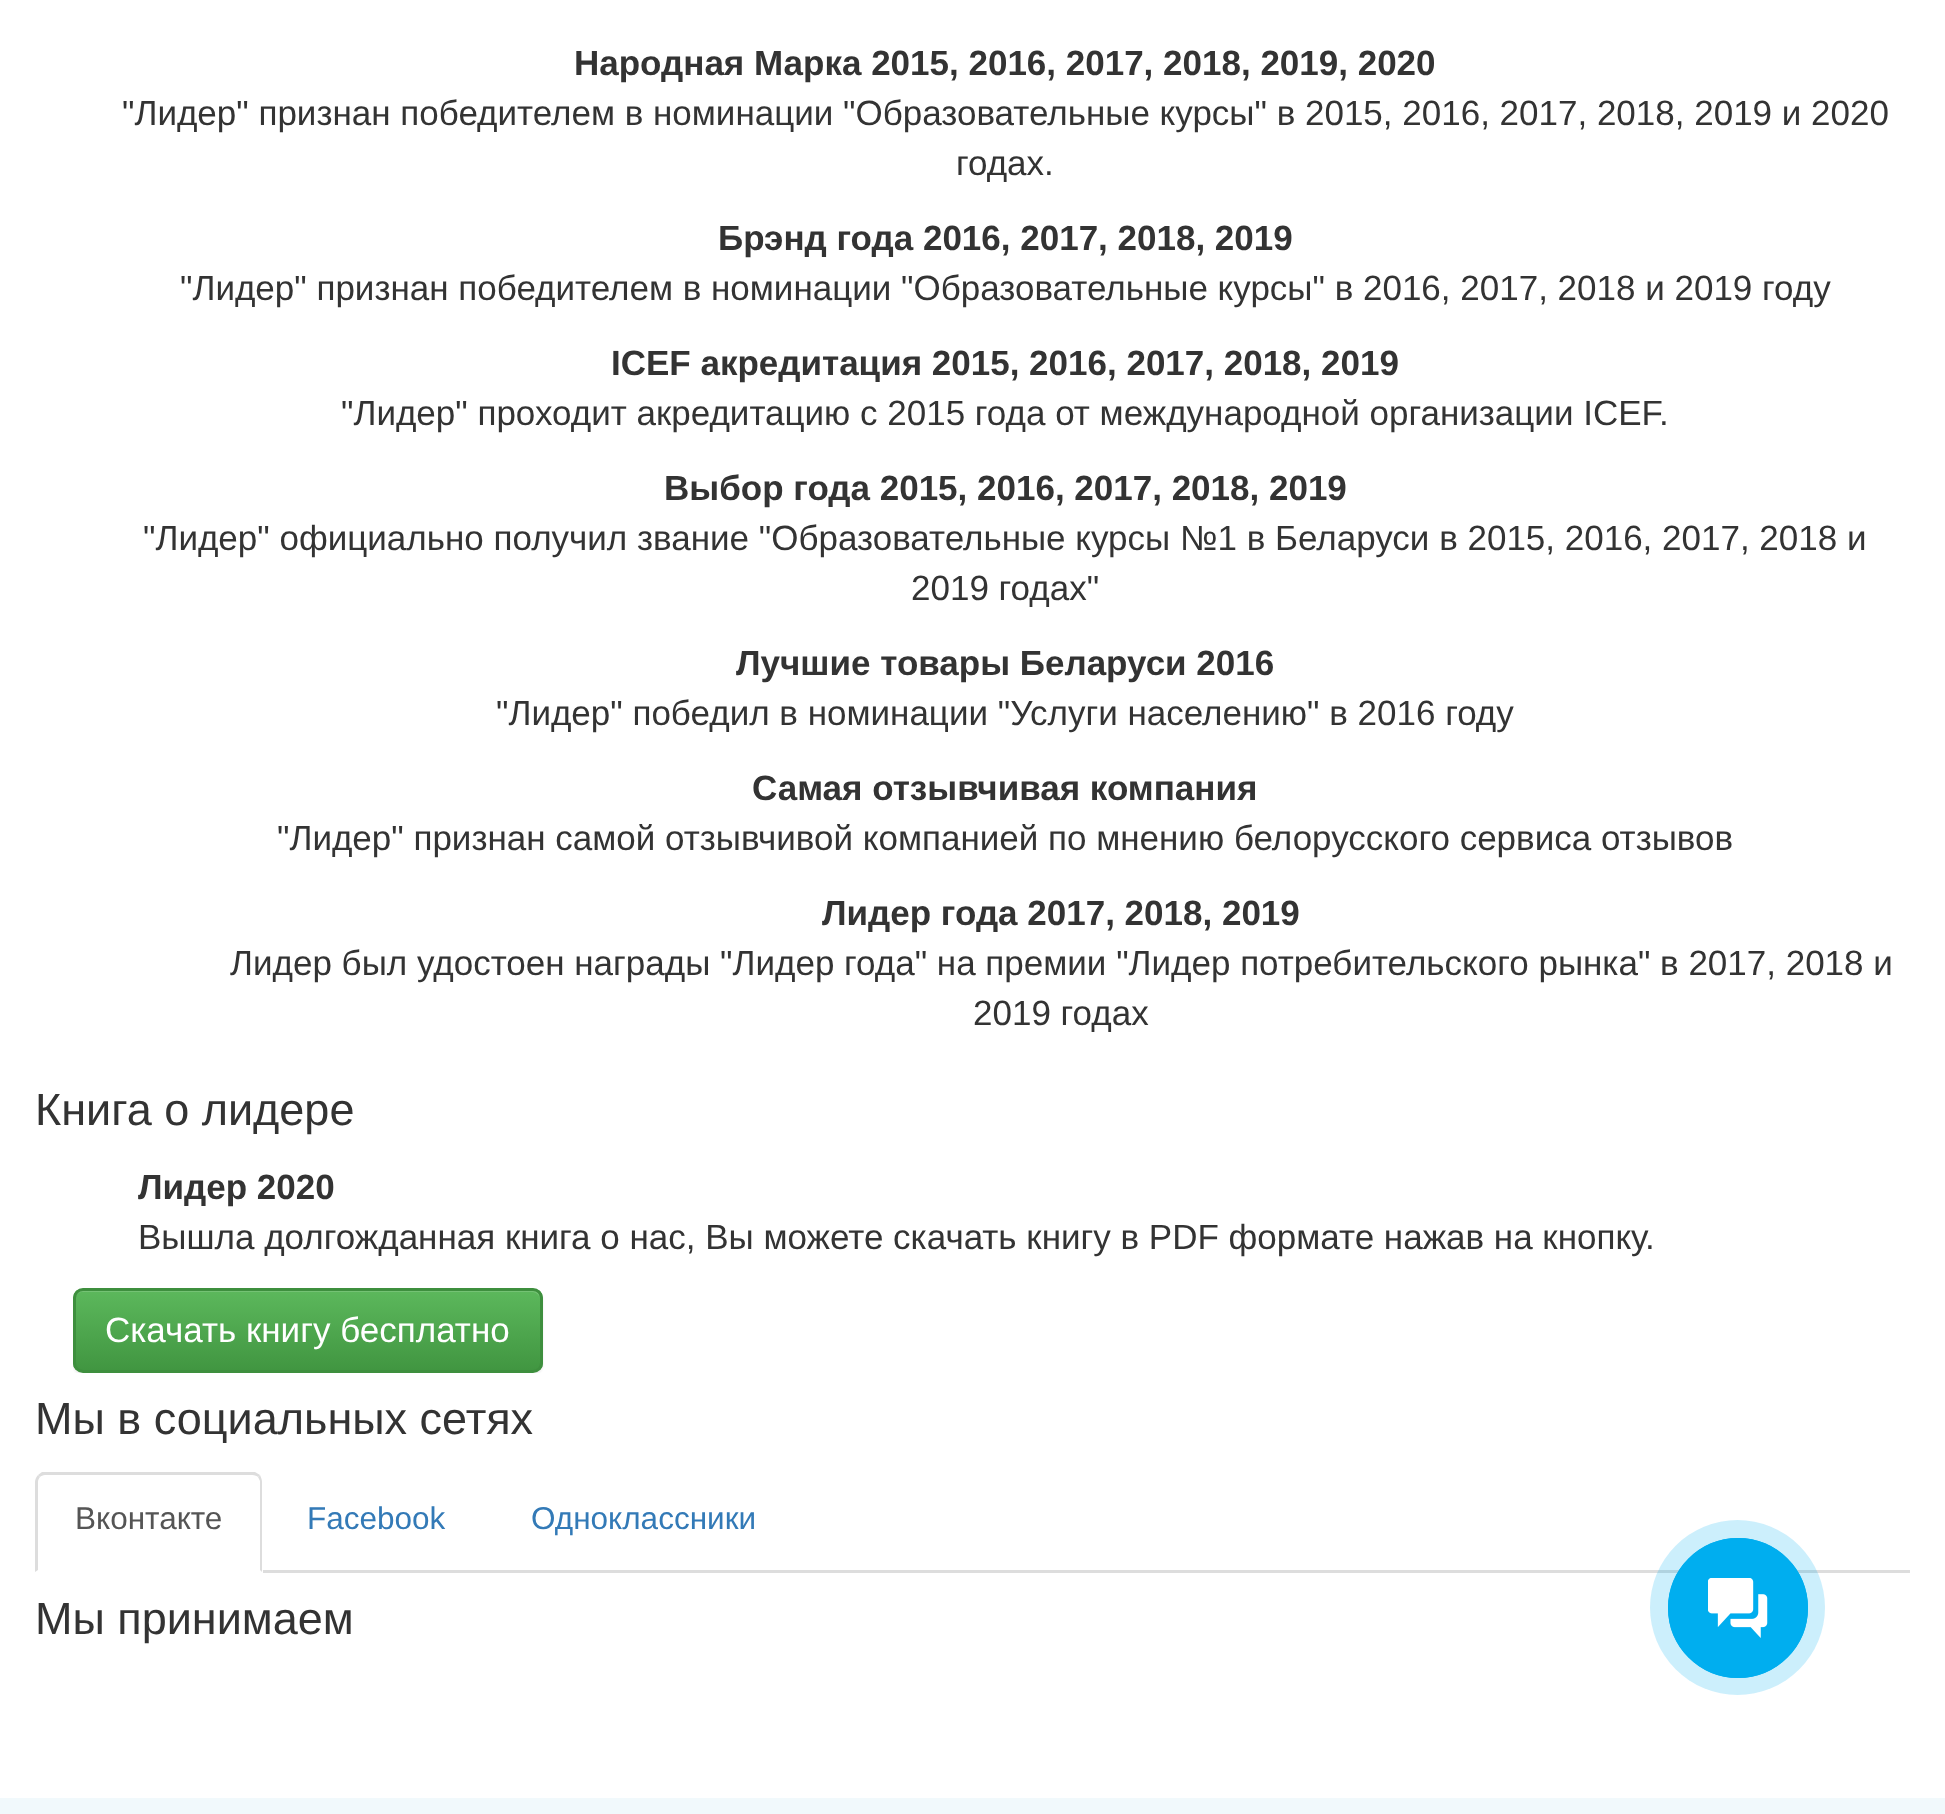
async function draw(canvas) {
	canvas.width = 1945;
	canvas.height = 1814;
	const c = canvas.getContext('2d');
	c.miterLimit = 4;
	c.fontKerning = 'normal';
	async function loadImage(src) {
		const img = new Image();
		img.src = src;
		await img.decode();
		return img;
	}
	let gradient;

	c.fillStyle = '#fff';
	c.fillRect(0, 0, 1945, 1814);
	c.font = 'bold 35px Liberation Sans';
	c.fillStyle = '#333';
	c.fillText('Народная Марка 2015, 2016, 2017, 2018, 2019, 2020', 574, 75);
	c.font = '35px Liberation Sans';
	c.fillText('"Лидер" признан победителем в номинации "Образовательные курсы" в 2015, 2016, 2017, 2018, 2019 и 2020', 122, 125);
	c.fillText('годах.', 956, 175);
	c.font = 'bold 35px Liberation Sans';
	c.fillText('Брэнд года 2016, 2017, 2018, 2019', 718, 250);
	c.font = '35px Liberation Sans';
	c.fillText('"Лидер" признан победителем в номинации "Образовательные курсы" в 2016, 2017, 2018 и 2019 году', 180, 300);
	c.font = 'bold 35px Liberation Sans';
	c.fillText('ICEF акредитация 2015, 2016, 2017, 2018, 2019', 611, 375);
	c.font = '35px Liberation Sans';
	c.fillText('"Лидер" проходит акредитацию с 2015 года от международной организации ICEF.', 341, 425);
	c.font = 'bold 35px Liberation Sans';
	c.fillText('Выбор года 2015, 2016, 2017, 2018, 2019', 664, 500);
	c.font = '35px Liberation Sans';
	c.fillText('"Лидер" официально получил звание "Образовательные курсы №1 в Беларуси в 2015, 2016, 2017, 2018 и', 143, 550);
	c.fillText('2019 годах"', 911, 600);
	c.font = 'bold 35px Liberation Sans';
	c.fillText('Лучшие товары Беларуси 2016', 736, 675);
	c.font = '35px Liberation Sans';
	c.fillText('"Лидер" победил в номинации "Услуги населению" в 2016 году', 496, 725);
	c.font = 'bold 35px Liberation Sans';
	c.fillText('Самая отзывчивая компания', 752, 800);
	c.font = '35px Liberation Sans';
	c.fillText('"Лидер" признан самой отзывчивой компанией по мнению белорусского сервиса отзывов', 277, 850);
	c.font = 'bold 35px Liberation Sans';
	c.fillText('Лидер года 2017, 2018, 2019', 822, 925);
	c.font = '35px Liberation Sans';
	c.fillText('Лидер был удостоен награды "Лидер года" на премии "Лидер потребительского рынка" в 2017, 2018 и', 230, 975);
	c.fillText('2019 годах', 973, 1025);
	c.font = '45px Liberation Sans';
	c.fillText('Книга о лидере', 35, 1125);
	c.save();
	c.beginPath();
	c.rect(138, 1163, 1735, 125);
	c.clip();
	c.font = 'bold 35px Liberation Sans';
	c.fillText('Лидер 2020', 138, 1199);
	c.restore();
	c.font = '35px Liberation Sans';
	c.fillText('Вышла долгожданная книга о нас, Вы можете скачать книгу в PDF формате нажав на кнопку.', 138, 1249);
	c.save();
	c.beginPath();
	c.rect(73, 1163, 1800, 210);
	c.clip();
	c.fillStyle = '#00000012';
	c.filter = 'blur(1px)';
	c.beginPath();
	c.roundRect(73, 1290, 470, 85, 10);
	c.fill();
	c.filter = 'none';
	c.restore();
	c.save();
	c.beginPath();
	c.roundRect(73, 1288, 470, 85, 10);
	c.clip();
	gradient = c.createLinearGradient(308, 1290, 308, 1370);
	gradient.addColorStop(0, '#5cb85c');
	gradient.addColorStop(1, '#419641');
	c.fillStyle = gradient;
	c.fillRect(73, 1290, 470, 80);
	c.restore();
	c.fillStyle = '#74c274';
	c.beginPath();
	c.moveTo(82, 1292);
	c.lineTo(532, 1292);
	c.bezierCurveTo(537, 1292, 540, 1296, 540, 1300);
	c.bezierCurveTo(540, 1295, 538, 1290, 532, 1290);
	c.lineTo(83, 1290);
	c.bezierCurveTo(77, 1290, 75, 1295, 75, 1300);
	c.bezierCurveTo(75, 1296, 78, 1292, 82, 1292);
	c.closePath();
	c.fill();
	c.beginPath();
	c.roundRect(74.5, 1289.5, 467, 82, 8.5);
	c.strokeStyle = '#3e8f3e';
	c.lineWidth = 3;
	c.stroke();
	c.fillStyle = '#fff';
	c.fillText('Скачать книгу бесплатно', 105, 1342);
	c.font = '45px Liberation Sans';
	c.fillStyle = '#333';
	c.fillText('Мы в социальных сетях', 35, 1434);
	c.fillStyle = '#ddd';
	c.fillRect(263, 1570, 1647, 3);
	c.beginPath();
	c.moveTo(45, 1475);
	c.bezierCurveTo(43, 1475, 41, 1476, 40, 1477);
	c.lineTo(38, 1475);
	c.lineTo(42, 1472);
	c.lineTo(255, 1472);
	c.lineTo(260, 1475);
	c.lineTo(258, 1477);
	c.bezierCurveTo(257, 1476, 255, 1475, 252, 1475);
	c.closePath();
	c.fill();
	c.beginPath();
	c.moveTo(260, 1475);
	c.bezierCurveTo(261, 1477, 262, 1480, 262, 1482);
	c.lineTo(262, 1572);
	c.lineTo(260, 1570);
	c.lineTo(260, 1481);
	c.lineTo(258, 1477);
	c.closePath();
	c.fill();
	c.beginPath();
	c.moveTo(35, 1482);
	c.lineTo(35, 1572);
	c.lineTo(38, 1570);
	c.lineTo(38, 1482);
	c.bezierCurveTo(38, 1480, 39, 1478, 40, 1477);
	c.lineTo(38, 1475);
	c.bezierCurveTo(36, 1477, 35, 1480, 35, 1482);
	c.closePath();
	c.fill();
	c.font = '31.5px Liberation Sans';
	c.fillStyle = '#555';
	c.fillText('Вконтакте', 75, 1529);
	c.fillStyle = '#337ab7';
	c.fillText('Facebook', 307, 1529);
	c.fillText('Одноклассники', 531, 1529);
	c.font = '45px Liberation Sans';
	c.fillStyle = '#333';
	c.fillText('Мы принимаем', 35, 1634);
	c.fillStyle = '#00aeef33';
	c.beginPath();
	c.arc(1737.5, 1607.5, 87.5, 0, 2 * Math.PI);
	c.fill();
	c.beginPath();
	c.arc(1738, 1608, 69, 0, 2 * Math.PI);
	c.strokeStyle = '#00aeef';
	c.lineWidth = 2;
	c.stroke();
	c.fillStyle = '#00aeef';
	c.beginPath();
	c.arc(1738, 1608, 70, 0, 2 * Math.PI);
	c.fill();
	c.drawImage(await loadImage('img1.png'), 1708, 1578, 60, 60);
	c.fillStyle = '#f1f9fc';
	c.fillRect(0, 1798, 1945, 16);
}

draw(document.querySelector('canvas'));
